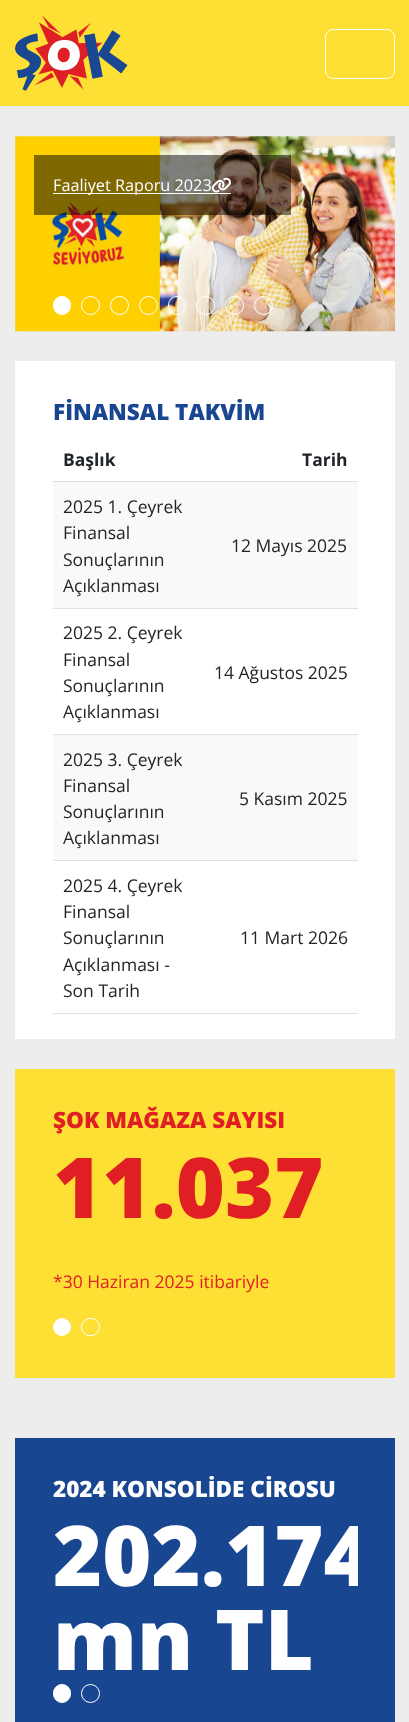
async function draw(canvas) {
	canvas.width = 409;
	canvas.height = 1722;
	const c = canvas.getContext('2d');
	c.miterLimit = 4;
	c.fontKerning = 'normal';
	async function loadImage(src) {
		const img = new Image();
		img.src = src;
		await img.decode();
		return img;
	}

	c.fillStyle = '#ededed';
	c.fillRect(0, 0, 409, 1722);
	c.fillStyle = '#fee034';
	c.fillRect(0, 0, 409, 106);
	c.drawImage(await loadImage('img1.png'), 15, 15, 113, 76);
	c.beginPath();
	c.roundRect(325.5, 29.5, 69, 49, 7.5);
	c.strokeStyle = '#fff';
	c.stroke();
	c.drawImage(await loadImage('img2.png'), 15, 136, 380, 196);
	c.fillStyle = '#00000080';
	c.fillRect(34, 155, 257, 60);
	c.fillStyle = '#fff';
	c.fillRect(53, 193, 178, 1);
	c.font = '16.25px Open Sans';
	c.fillText('Faaliyet Raporu 2023', 53, 191);
	c.drawImage(await loadImage('img3.png'), 211, 177, 20, 16);
	c.beginPath();
	c.roundRect(53.5, 296.5, 17, 18, 8.5);
	c.fill();
	c.stroke();
	c.beginPath();
	c.arc(90.5, 305.5, 9, 0, 2 * Math.PI);
	c.stroke();
	c.beginPath();
	c.arc(119.5, 305.5, 9, 0, 2 * Math.PI);
	c.stroke();
	c.beginPath();
	c.arc(148.5, 305.5, 9, 0, 2 * Math.PI);
	c.stroke();
	c.beginPath();
	c.roundRect(168.5, 296.5, 17, 18, 8.5);
	c.stroke();
	c.beginPath();
	c.arc(205.5, 305.5, 9, 0, 2 * Math.PI);
	c.stroke();
	c.beginPath();
	c.arc(234.5, 305.5, 9, 0, 2 * Math.PI);
	c.stroke();
	c.beginPath();
	c.arc(263.5, 305.5, 9, 0, 2 * Math.PI);
	c.stroke();
	c.fillRect(15, 361, 380, 678);
	c.font = '800 22.5px Open Sans';
	c.fillStyle = '#184690';
	c.fillText('FİNANSAL TAKVİM', 53, 420);
	c.font = 'bold 17.5px Open Sans';
	c.fillStyle = '#212529';
	c.fillText('Başlık', 63, 466);
	c.fillText('Tarih', 302, 466);
	for (const [x, y, w, h, color] of [
		[53, 482, 305, 126, '#f9f9f9'],
		[53, 481, 305, 1, '#dee2e6'],
		[53, 608, 305, 1, '#dee2e6'],
	]) {
		c.fillStyle = color;
		c.fillRect(x, y, w, h);
	}
	c.font = '17.5px Open Sans';
	c.fillStyle = '#212529';
	for (const [text, x, y] of [
		['2025 1. Çeyrek', 63, 513],
		['Finansal', 63, 539],
		['Sonuçlarının', 63, 566],
		['Açıklanması', 63, 592],
		['12 Mayıs 2025', 231, 552],
	]) {
		c.fillText(text, x, y);
	}
	c.fillStyle = '#dee2e6';
	c.fillRect(53, 734, 305, 1);
	c.fillStyle = '#212529';
	for (const [text, x, y] of [
		['2025 2. Çeyrek', 63, 639],
		['Finansal', 63, 666],
		['Sonuçlarının', 63, 692],
		['Açıklanması', 63, 718],
		['14 Ağustos 2025', 214, 679],
	]) {
		c.fillText(text, x, y);
	}
	c.fillStyle = '#f9f9f9';
	c.fillRect(53, 735, 305, 125);
	c.fillStyle = '#dee2e6';
	c.fillRect(53, 860, 305, 1);
	c.fillStyle = '#212529';
	for (const [text, x, y] of [
		['2025 3. Çeyrek', 63, 766],
		['Finansal', 63, 792],
		['Sonuçlarının', 63, 818],
		['Açıklanması', 63, 844],
		['5 Kasım 2025', 239, 805],
	]) {
		c.fillText(text, x, y);
	}
	c.fillStyle = '#dee2e6';
	c.fillRect(53, 1013, 305, 1);
	c.fillStyle = '#212529';
	for (const [text, x, y] of [
		['2025 4. Çeyrek', 63, 892],
		['Finansal', 63, 918],
		['Sonuçlarının', 63, 944],
		['Açıklanması -', 63, 971],
		['Son Tarih', 63, 997],
		['11 Mart 2026', 240, 944],
	]) {
		c.fillText(text, x, y);
	}
	c.fillStyle = '#fee034';
	c.fillRect(15, 1069, 380, 309);
	c.font = '800 22.5px Open Sans';
	c.fillStyle = '#e01f25';
	c.fillText('ŞOK MAĞAZA SAYISI', 53, 1128);
	c.font = '800 84px Open Sans';
	c.fillText('11.037', 53, 1218);
	c.font = '17.5px Open Sans';
	c.fillText('*30 Haziran 2025 itibariyle', 53, 1288);
	c.fillStyle = '#fff';
	c.beginPath();
	c.arc(62, 1327, 8.5, 0, 2 * Math.PI);
	c.fill();
	c.stroke();
	c.beginPath();
	c.roundRect(81.5, 1318.5, 18, 17, 8.5);
	c.stroke();
	c.fillStyle = '#184690';
	c.fillRect(15, 1438, 380, 284);
	c.font = '800 22.5px Open Sans';
	c.fillStyle = '#fff';
	c.fillText('2024 KONSOLİDE CİROSU', 53, 1497);
	c.save();
	c.beginPath();
	c.rect(53, 1475, 305, 205);
	c.clip();
	c.font = '800 84px Open Sans';
	c.fillText('202.174', 53, 1586);
	c.restore();
	c.font = '800 84px Open Sans';
	c.fillText('mn TL', 53, 1670);
	c.beginPath();
	c.roundRect(53.5, 1684.5, 17, 18, 8.5);
	c.fill();
	c.stroke();
	c.beginPath();
	c.arc(90.5, 1693.5, 9, 0, 2 * Math.PI);
	c.stroke();
}

draw(document.querySelector('canvas'));
